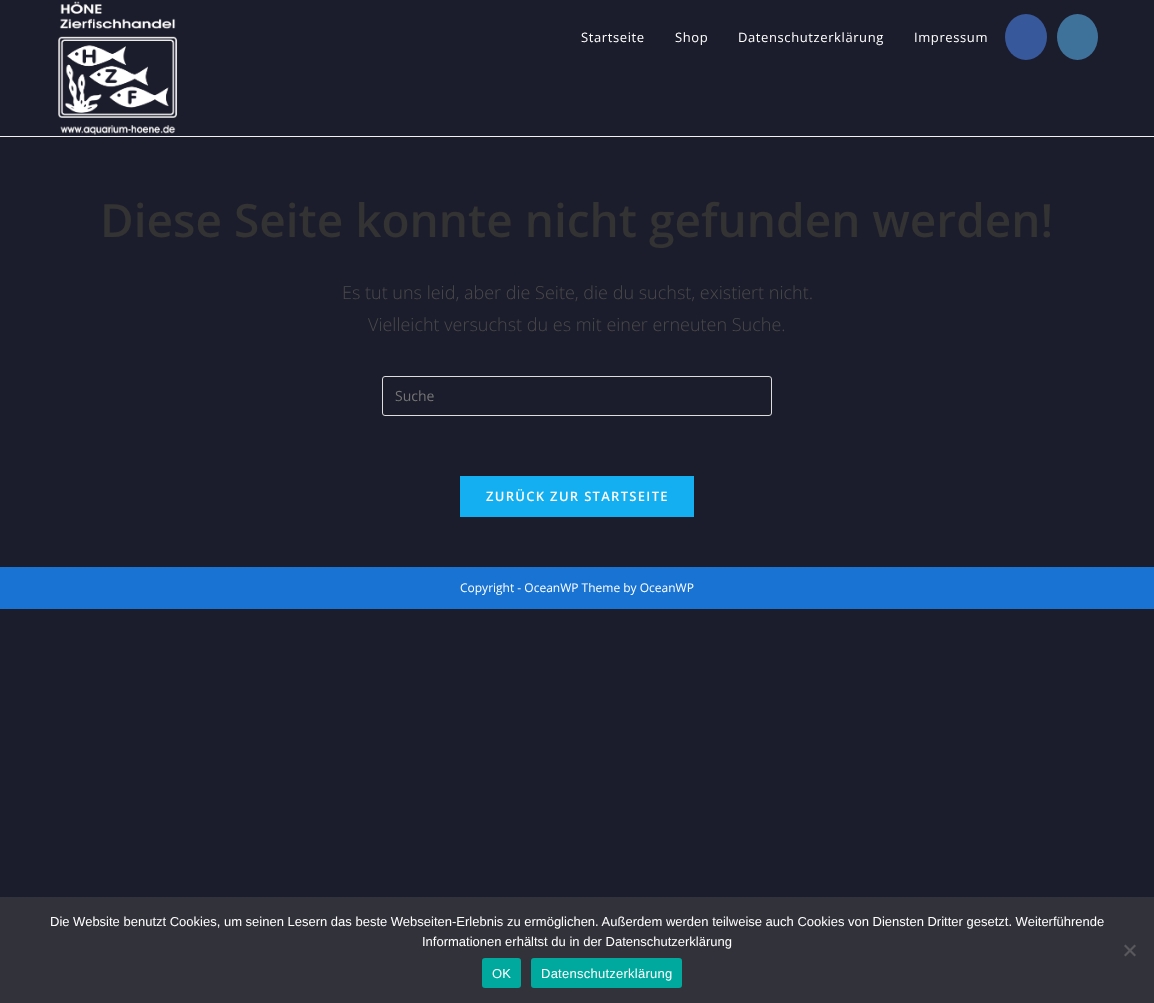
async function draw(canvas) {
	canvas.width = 1154;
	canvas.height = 1003;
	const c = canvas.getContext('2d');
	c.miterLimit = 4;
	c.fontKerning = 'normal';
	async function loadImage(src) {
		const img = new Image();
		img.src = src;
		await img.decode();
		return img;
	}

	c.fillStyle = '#1c1d2c';
	c.fillRect(0, 0, 1154, 1003);
	c.fillStyle = '#f1f1f1';
	c.fillRect(0, 136, 1154, 1);
	c.drawImage(await loadImage('img1.png'), 58, 1, 120, 134);
	c.letterSpacing = '0.6px';
	c.font = '13px Open Sans';
	c.fillStyle = '#fff';
	for (const [text, x, y] of [
		['Startseite', 581, 42],
		['Shop', 675, 42],
		['Datenschutzerklärung', 738, 42],
		['Impressum', 914, 42],
	]) {
		c.fillText(text, x, y);
	}
	c.fillStyle = '#37589b';
	c.beginPath();
	c.ellipse(1026, 37, 21, 23, 0, 0, 2 * Math.PI);
	c.fill();
	c.fillStyle = '#3f729b';
	c.beginPath();
	c.ellipse(1077.5, 37, 20.5, 23, 0, 0, 2 * Math.PI);
	c.fill();
	c.letterSpacing = '0px';
	c.font = '600 46px Open Sans';
	c.fillStyle = '#333';
	c.fillText('Diese Seite konnte nicht gefunden werden!', 100, 237);
	c.font = '300 18px Open Sans';
	c.fillStyle = '#4a4a4a';
	c.fillText('Es tut uns leid, aber die Seite, die du suchst, existiert nicht.', 342, 299);
	c.fillText('Vielleicht versuchst du es mit einer erneuten Suche.', 368, 331);
	c.beginPath();
	c.roundRect(382.5, 376.5, 389, 39, 2.5);
	c.strokeStyle = '#ddd';
	c.stroke();
	c.font = '14px Open Sans';
	c.fillStyle = '#757575';
	c.fillText('Suche', 395, 401);
	c.fillStyle = '#13aff0';
	c.fillRect(460, 476, 234, 41);
	c.letterSpacing = '1.3px';
	c.font = '600 13px Open Sans';
	c.fillStyle = '#fff';
	c.fillText('ZURÜCK ZUR STARTSEITE', 486, 501);
	c.fillStyle = '#1973d3';
	c.fillRect(0, 567, 1154, 42);
	c.letterSpacing = '0px';
	c.font = '12px Open Sans';
	c.fillStyle = '#fff';
	c.fillText('Copyright - OceanWP Theme by OceanWP', 460, 592);
	c.fillStyle = '#32323a';
	c.fillRect(0, 897, 1154, 106);
	c.font = '13px Liberation Sans';
	c.fillStyle = '#fff';
	c.fillText('Die Website benutzt Cookies, um seinen Lesern das beste Webseiten-Erlebnis zu ermöglichen. Außerdem werden teilweise auch Cookies von Diensten Dritter gesetzt. Weiterführende', 50, 926);
	c.fillText('Informationen erhältst du in der Datenschutzerklärung', 422, 946);
	c.fillStyle = '#59595d';
	c.beginPath();
	c.moveTo(1134.5, 944.5);
	c.lineTo(1136, 946);
	c.lineTo(1125.5, 956.5);
	c.lineTo(1124, 955);
	c.closePath();
	c.fill();
	c.beginPath();
	c.moveTo(1124, 946);
	c.lineTo(1125.5, 944.5);
	c.lineTo(1136, 955);
	c.lineTo(1134.5, 956.5);
	c.closePath();
	c.fill();
	c.fillStyle = '#00a99d';
	c.beginPath();
	c.roundRect(482, 958, 39, 30, 3);
	c.fill();
	c.letterSpacing = '0.25px';
	c.fillStyle = '#fff';
	c.fillText('OK', 492, 978);
	c.fillStyle = '#00a99d';
	c.beginPath();
	c.roundRect(531, 958, 151, 30, 3);
	c.fill();
	c.fillStyle = '#fff';
	c.fillText('Datenschutzerklärung', 541, 978);
}

draw(document.querySelector('canvas'));
